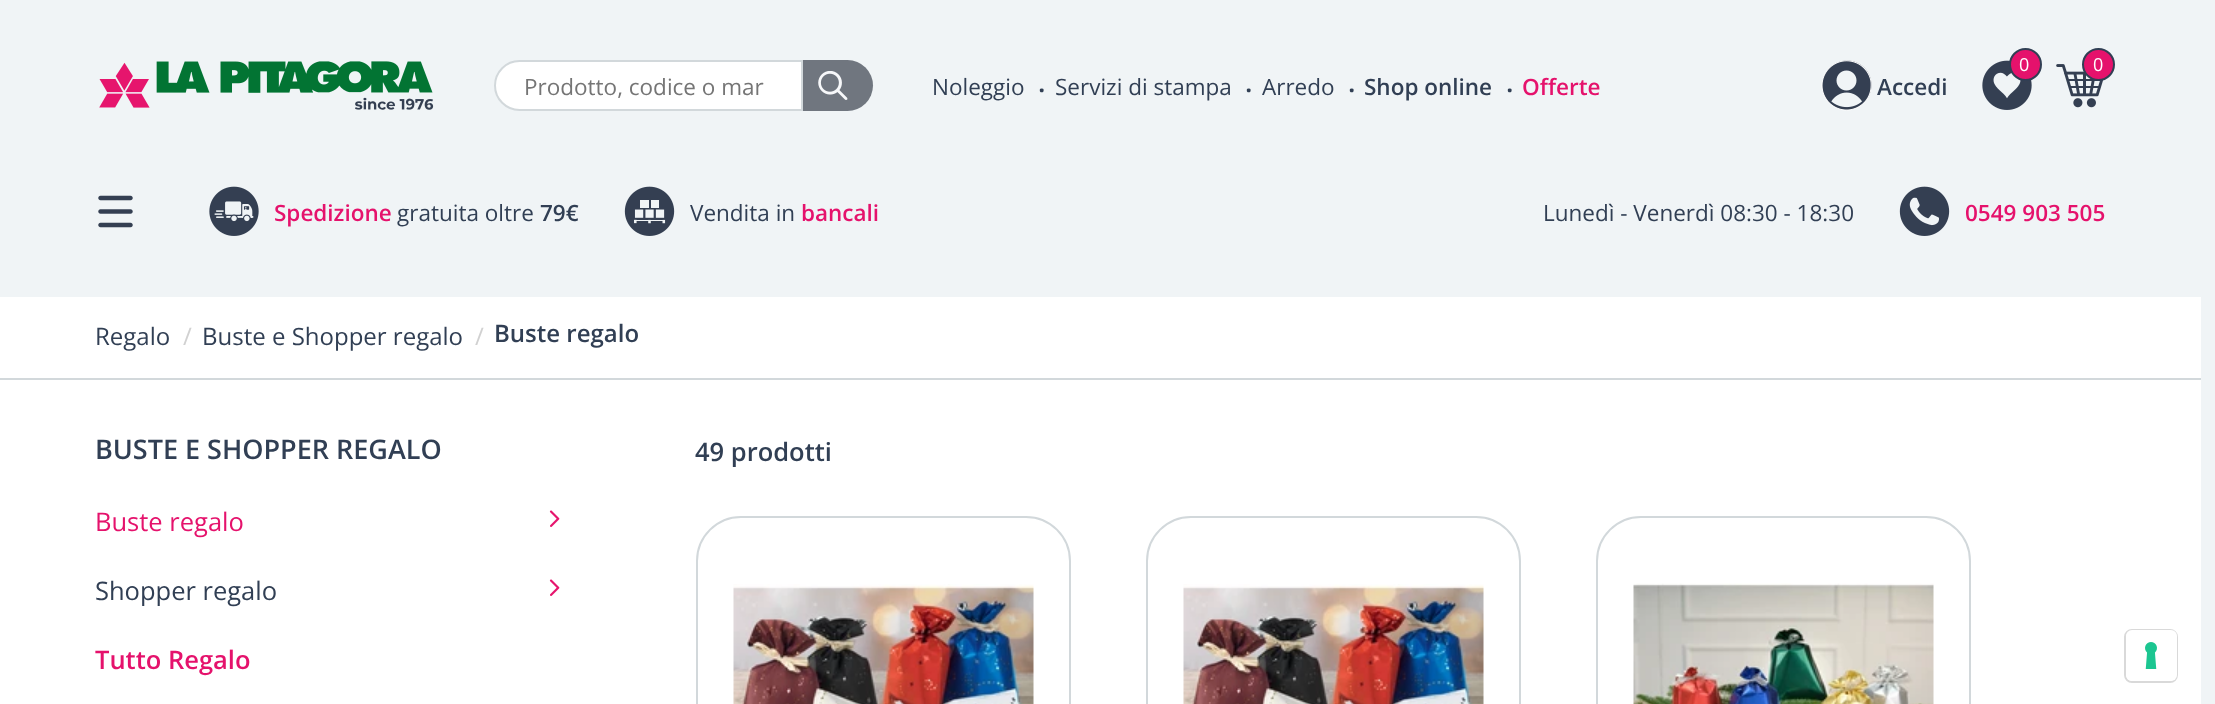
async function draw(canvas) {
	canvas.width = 2215;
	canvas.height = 704;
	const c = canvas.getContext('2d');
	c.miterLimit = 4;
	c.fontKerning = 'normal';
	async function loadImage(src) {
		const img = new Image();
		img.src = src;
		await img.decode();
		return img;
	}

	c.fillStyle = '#f0f4f6';
	c.fillRect(0, 0, 2215, 704);
	c.drawImage(await loadImage('img1.png'), 99, 61, 335, 49);
	c.fillStyle = '#fff';
	c.beginPath();
	c.roundRect(495, 61, 307, 49, [24.5, 0, 0, 24.5]);
	c.fill();
	c.strokeStyle = '#d2d8db';
	c.lineWidth = 2;
	c.stroke();
	c.font = '22.5px Open Sans';
	c.fillStyle = '#757575';
	c.fillText('Prodotto, codice o mar', 524, 95);
	c.fillStyle = '#70767f';
	c.beginPath();
	c.roundRect(803, 60, 70, 51, [0, 25.5, 25.5, 0]);
	c.fill();
	c.drawImage(await loadImage('img2.png'), 818, 71, 30, 29);
	c.fillStyle = '#313f54';
	c.fillText('Noleggio', 932, 95);
	c.font = '600 27px Open Sans';
	c.fillText('.', 1038, 92);
	c.font = '22.5px Open Sans';
	c.fillText('Servizi di stampa', 1055, 95);
	c.font = '600 27px Open Sans';
	c.fillText('.', 1245, 92);
	c.font = '22.5px Open Sans';
	c.fillText('Arredo', 1262, 95);
	c.font = '600 27px Open Sans';
	c.fillText('.', 1348, 92);
	c.font = '600 22.5px Open Sans';
	c.fillText('Shop online', 1364, 95);
	c.font = '600 27px Open Sans';
	c.fillText('.', 1506, 92);
	c.font = '600 22.5px Open Sans';
	c.fillStyle = '#e5126c';
	c.fillText('Offerte', 1522, 95);
	c.drawImage(await loadImage('img3.png'), 1982, 60, 50, 50);
	c.beginPath();
	c.arc(2025.5, 64.5, 15.5, 0, 2 * Math.PI);
	c.fill();
	c.strokeStyle = '#313f54';
	c.stroke();
	c.font = '18px Open Sans';
	c.fillStyle = '#fff';
	c.fillText('0', 2019, 71);
	c.drawImage(await loadImage('img4.png'), 1821, 60, 51, 51);
	c.font = '600 22.5px Open Sans';
	c.fillStyle = '#313f54';
	c.fillText('Accedi', 1877, 95);
	c.drawImage(await loadImage('img5.png'), 2056, 64, 48, 44);
	c.fillStyle = '#e5126c';
	c.beginPath();
	c.arc(2098.5, 64.5, 15.5, 0, 2 * Math.PI);
	c.fill();
	c.stroke();
	c.font = '18px Open Sans';
	c.fillStyle = '#fff';
	c.fillText('0', 2093, 71);
	c.drawImage(await loadImage('img6.png'), 98, 195, 35, 33);
	c.drawImage(await loadImage('img7.png'), 209, 186, 50, 50);
	c.font = '600 22.5px Open Sans';
	c.fillStyle = '#e5126c';
	c.fillText('Spedizione', 274, 221);
	c.font = '22.5px Open Sans';
	c.fillStyle = '#313f54';
	c.fillText('gratuita oltre', 397, 221);
	c.font = '600 22.5px Open Sans';
	c.fillText('79€', 540, 221);
	c.drawImage(await loadImage('img8.png'), 624, 186, 51, 50);
	c.font = '22.5px Open Sans';
	c.fillText('Vendita in', 690, 221);
	c.font = '600 22.5px Open Sans';
	c.fillStyle = '#e5126c';
	c.fillText('bancali', 801, 221);
	c.font = '22.5px Open Sans';
	c.fillStyle = '#313f54';
	c.fillText('Lunedì - Venerdì 08:30 - 18:30', 1543, 221);
	c.drawImage(await loadImage('img9.png'), 1899, 186, 51, 50);
	c.font = '600 22.5px Open Sans';
	c.fillStyle = '#e5126c';
	c.fillText('0549 903 505', 1965, 221);
	c.fillStyle = '#fff';
	c.fillRect(0, 297, 2201, 407);
	c.fillStyle = '#d2d8db';
	c.fillRect(0, 378, 2201, 2);
	c.font = '24px Open Sans';
	c.fillStyle = '#313f54';
	c.fillText('Regalo', 95, 345);
	c.fillStyle = '#d1d1d1';
	c.fillText('/', 183, 345);
	c.fillStyle = '#313f54';
	c.fillText('Buste e Shopper regalo', 202, 345);
	c.fillStyle = '#d1d1d1';
	c.fillText('/', 475, 345);
	c.font = '600 24px Open Sans';
	c.fillStyle = '#313f54';
	c.fillText('Buste regalo', 494, 342);
	c.font = '600 27px Open Sans';
	c.fillText('BUSTE E SHOPPER REGALO', 95, 459);
	c.font = '25.5px Open Sans';
	c.fillStyle = '#e5126c';
	c.fillText('Buste regalo', 95, 531);
	c.drawImage(await loadImage('img10.png'), 549, 510, 11, 17);
	c.fillStyle = '#313f54';
	c.fillText('Shopper regalo', 95, 600);
	c.drawImage(await loadImage('img10.png'), 549, 579, 11, 17);
	c.font = '600 25.5px Open Sans';
	c.fillStyle = '#e5126c';
	c.fillText('Tutto Regalo', 95, 669);
	c.fillStyle = '#313f54';
	c.fillText('49 prodotti', 695, 461);
	c.beginPath();
	c.roundRect(697, 517, 373, 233, 44);
	c.strokeStyle = '#d2d8db';
	c.stroke();
	c.drawImage(await loadImage('img11.png'), 733, 584, 301, 120);
	c.beginPath();
	c.roundRect(1147, 517, 373, 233, 44);
	c.stroke();
	c.drawImage(await loadImage('img12.png'), 1183, 584, 301, 120);
	c.beginPath();
	c.roundRect(1597, 517, 373, 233, 44);
	c.stroke();
	c.drawImage(await loadImage('img13.png'), 1633, 583, 301, 121);
	c.beginPath();
	c.roundRect(2125, 630, 52, 52, 7);
	c.strokeStyle = '#d9d9d9';
	c.stroke();
	c.fillStyle = '#fff';
	c.beginPath();
	c.roundRect(2126, 630, 51, 51, 6);
	c.fill();
	c.drawImage(await loadImage('img14.png'), 2145, 642, 12, 27);
}

draw(document.querySelector('canvas'));
